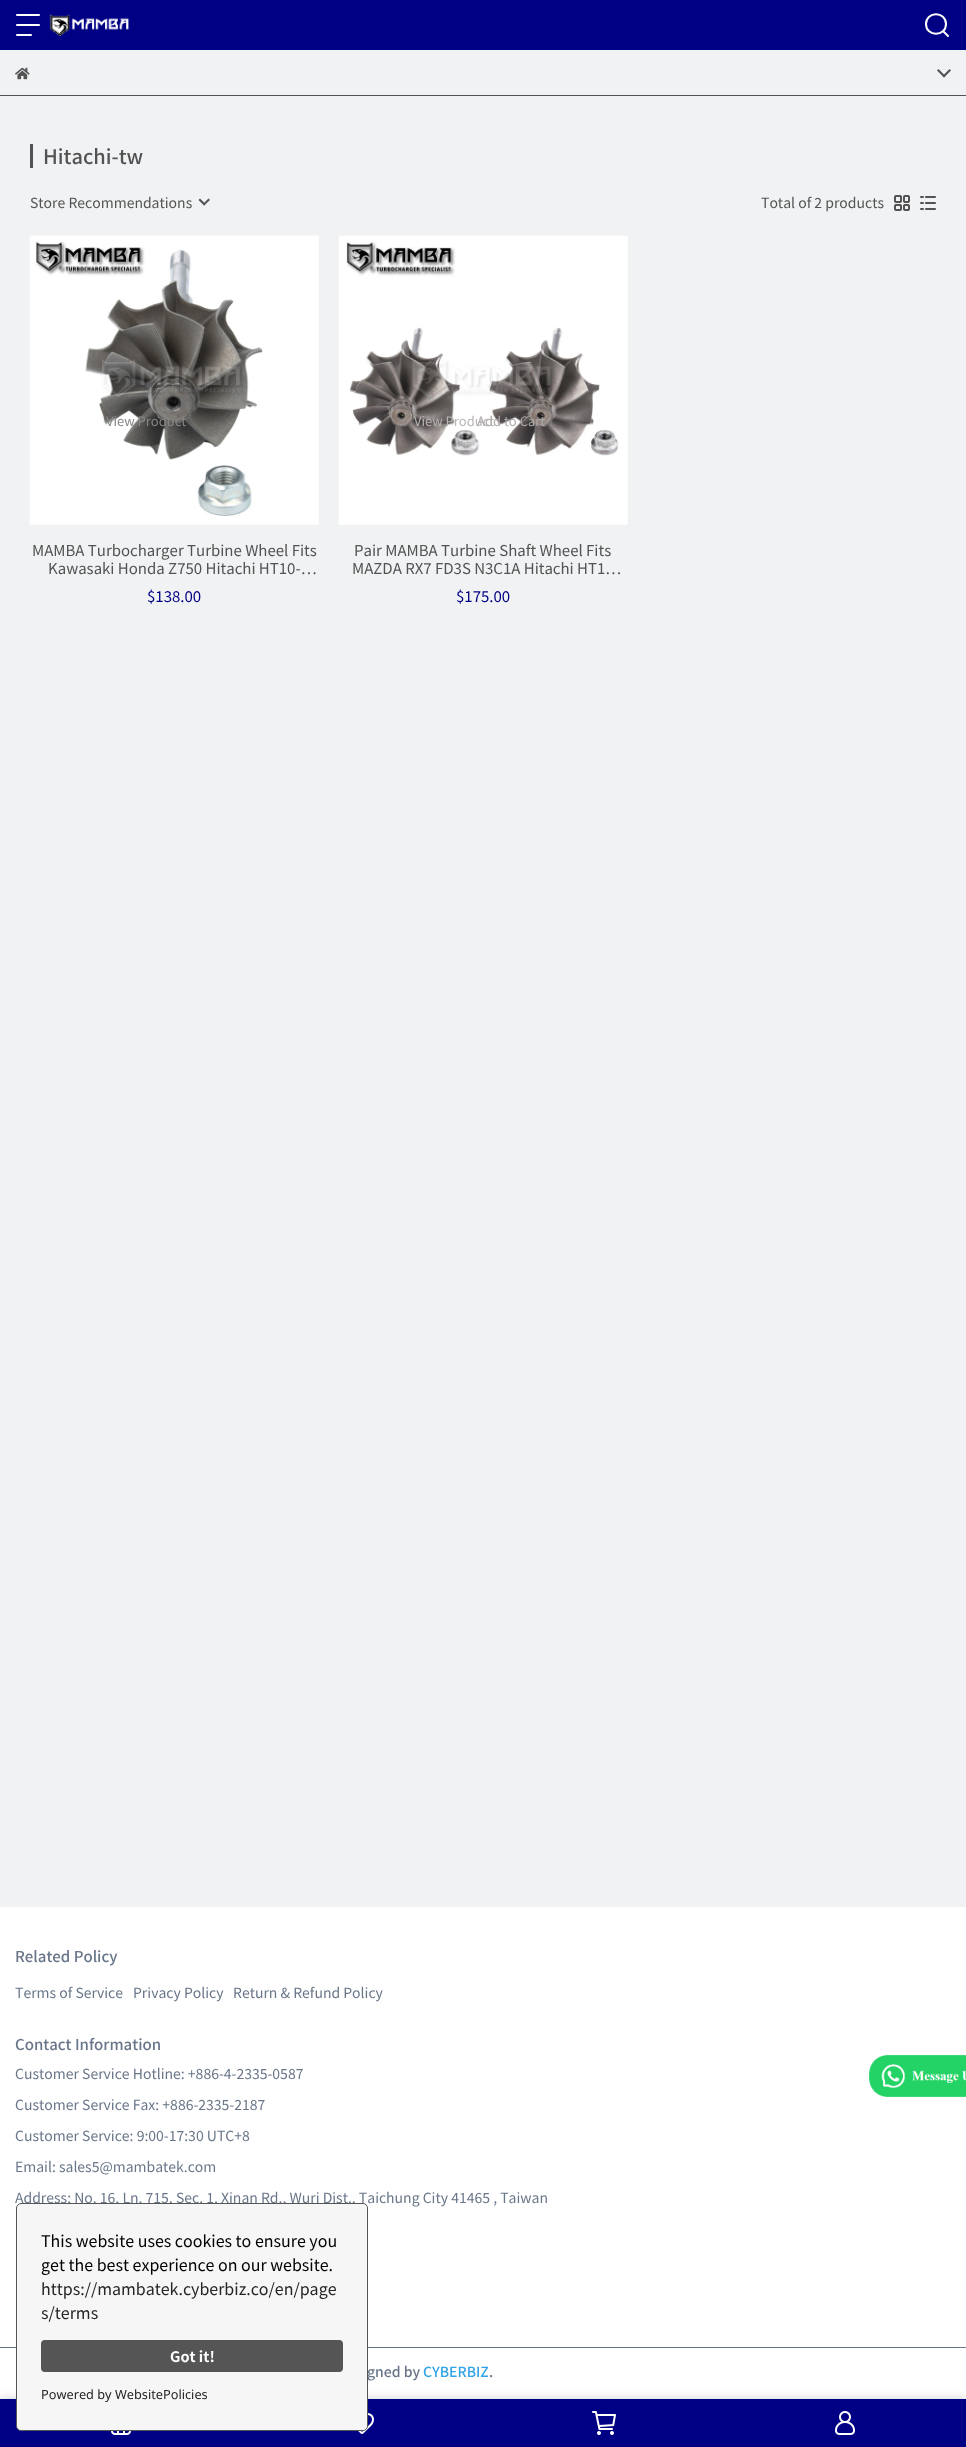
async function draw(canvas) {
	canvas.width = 966;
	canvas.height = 2447;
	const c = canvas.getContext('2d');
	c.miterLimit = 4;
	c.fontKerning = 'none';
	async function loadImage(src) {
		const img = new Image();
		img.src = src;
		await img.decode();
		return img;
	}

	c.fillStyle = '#fff';
	c.fillRect(0, 0, 966, 2447);
	c.fillStyle = '#000085';
	c.fillRect(0, 0, 966, 50);
	c.drawImage(await loadImage('img1.png'), 16, 14, 24, 22);
	c.drawImage(await loadImage('img2.png'), 49, 14, 80, 22);
	c.beginPath();
	c.moveTo(946, 24);
	c.bezierCurveTo(946, 37, 926, 37, 926, 24);
	c.bezierCurveTo(926, 11, 946, 11, 946, 24);
	c.closePath();
	c.moveTo(944, 32);
	c.lineTo(948, 36);
	c.strokeStyle = '#fff';
	c.lineWidth = 2;
	c.lineCap = 'round';
	c.lineJoin = 'round';
	c.stroke();
	c.fillStyle = '#00000033';
	c.filter = 'blur(5px)';
	c.beginPath();
	c.rect(0, 2399, 966, 48);
	c.fill();
	c.filter = 'none';
	c.fillStyle = '#000085';
	c.fillRect(0, 2399, 966, 48);
	c.drawImage(await loadImage('img3.png'), 111, 2431, 20, 4);
	c.drawImage(await loadImage('img4.png'), 358, 2413, 16, 21);
	c.drawImage(await loadImage('img5.png'), 592, 2411, 24, 24);
	c.drawImage(await loadImage('img6.png'), 835, 2411, 20, 24);
	c.fillStyle = '#f1f2f3';
	c.fillRect(0, 50, 966, 1857);
	c.fillStyle = '#535353';
	c.fillRect(0, 95, 966, 1);
	c.drawImage(await loadImage('img7.png'), 15, 67, 15, 13);
	c.beginPath();
	c.moveTo(942.5, 76);
	c.lineTo(949.5, 69);
	c.lineTo(951, 70.5);
	c.lineTo(944, 77.5);
	c.closePath();
	c.fill();
	c.beginPath();
	c.moveTo(937, 70.5);
	c.lineTo(938.5, 69);
	c.lineTo(945.5, 76);
	c.lineTo(944, 77.5);
	c.closePath();
	c.fill();
	c.fillRect(30, 144, 3, 24);
	c.font = '500 20px Noto Sans TC';
	c.fillText('Hitachi-tw', 43, 164);
	c.font = '14px Noto Sans TC';
	c.fillText('Store Recommendations', 30, 208);
	c.beginPath();
	c.moveTo(208.5, 198.5);
	c.lineTo(210, 200);
	c.lineTo(204, 205.5);
	c.lineTo(203, 204);
	c.closePath();
	c.fill();
	c.beginPath();
	c.moveTo(200, 198.5);
	c.lineTo(205.5, 204);
	c.lineTo(204, 205.5);
	c.lineTo(198.5, 200);
	c.closePath();
	c.fill();
	c.fillText('Total of 2 products', 761, 208);
	c.drawImage(await loadImage('img8.png'), 894, 195, 16, 16);
	c.drawImage(await loadImage('img9.png'), 920, 196, 16, 14);
	c.drawImage(await loadImage('img10.png'), 29, 235, 290, 290);
	c.font = '13px Noto Sans TC';
	c.fillStyle = '#878786';
	c.fillText('View Product', 106, 426);
	c.font = '15px Noto Sans TC';
	c.fillStyle = '#535353';
	c.fillText('MAMBA Turbocharger Turbine Wheel Fits', 32, 556);
	c.fillText('Kawasaki Honda Z750 Hitachi HT10-…', 48, 574);
	c.fillStyle = '#000085';
	c.fillText('$138.00', 147, 602);
	c.drawImage(await loadImage('img11.png'), 338, 235, 290, 290);
	c.font = '13px Noto Sans TC';
	c.fillStyle = '#b8b5b4';
	c.fillText('View Product', 414, 426);
	c.fillStyle = '#aeaaa9';
	c.fillText('Add to Cart', 477, 426);
	c.font = '15px Noto Sans TC';
	c.fillStyle = '#535353';
	c.fillText('Pair MAMBA Turbine Shaft Wheel Fits', 354, 556);
	c.fillText('MAZDA RX7 FD3S N3C1A Hitachi HT1…', 352, 574);
	c.fillStyle = '#000085';
	c.fillText('$175.00', 456, 602);
	c.font = '500 15px Noto Sans TC';
	c.fillStyle = '#697689';
	c.fillText('Related Policy', 15, 1962);
	c.font = '14px Noto Sans TC';
	for (const [text, x, y] of [
		['Terms of Service', 15, 1998],
		['Privacy Policy', 133, 1998],
		['Return & Refund Policy', 233, 1998],
	]) {
		c.fillText(text, x, y);
	}
	c.font = '500 15px Noto Sans TC';
	c.fillText('Contact Information', 15, 2050);
	c.font = '14px Noto Sans TC';
	for (const [text, x, y] of [
		['Customer Service Hotline: +886-4-2335-0587', 15, 2079],
		['Customer Service Fax: +886-2335-2187', 15, 2110],
		['Customer Service: 9:00-17:30 UTC+8', 15, 2141],
		['Email: sales5@mambatek.com', 15, 2172],
		['Address: No. 16, Ln. 715, Sec. 1, Xinan Rd., Wuri Dist., Taichung City 41465 , Taiwan', 15, 2203],
	]) {
		c.fillText(text, x, y);
	}
	c.fillRect(0, 2347, 966, 1);
	c.font = '500 14px Noto Sans TC';
	c.fillText('gned by', 367, 2377);
	c.fillStyle = '#33a4e8';
	c.fillText('CYBERBIZ', 423, 2377);
	c.fillStyle = '#697689';
	c.fillText('.', 489, 2377);
	c.drawImage(await loadImage('img12.png'), 869, 2055, 97, 42);
	c.fillStyle = '#f6f6f6';
	c.beginPath();
	c.roundRect(16.5, 2203.5, 351, 227, 4.5);
	c.fill();
	c.strokeStyle = '#555';
	c.lineWidth = 1;
	c.lineJoin = 'miter';
	c.stroke();
	c.font = '16px Noto Sans TC';
	c.fillStyle = '#000';
	c.fillText('This website uses cookies to ensure you', 41, 2247);
	c.fillText('get the best experience on our website.', 41, 2271);
	c.fillStyle = '#252525';
	c.fillText('https://mambatek.cyberbiz.co/en/page', 41, 2295);
	c.fillText('s/terms', 41, 2319);
	c.fillStyle = '#555';
	c.beginPath();
	c.roundRect(41, 2340, 302, 32, 4);
	c.fill();
	c.font = 'bold 14.5px Noto Sans TC';
	c.fillStyle = '#fff';
	c.fillText('Got it!', 170, 2362);
	c.font = '12.75px Noto Sans';
	c.fillStyle = '#252525';
	c.fillText('Powered by WebsitePolicies', 41, 2399);
}

draw(document.querySelector('canvas'));
